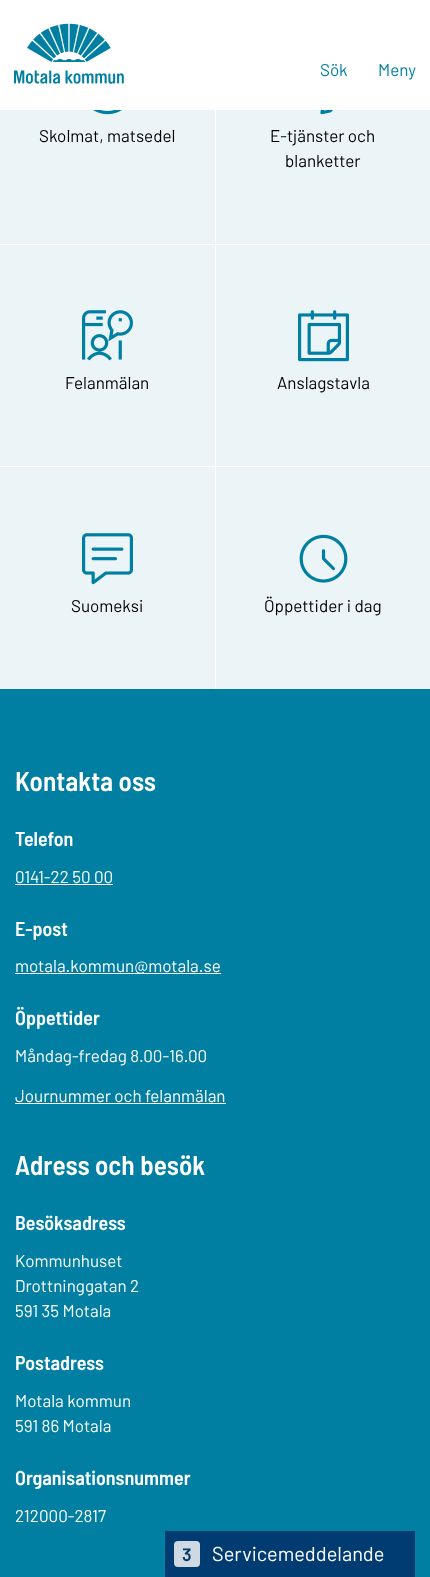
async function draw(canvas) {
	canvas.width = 430;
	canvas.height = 1577;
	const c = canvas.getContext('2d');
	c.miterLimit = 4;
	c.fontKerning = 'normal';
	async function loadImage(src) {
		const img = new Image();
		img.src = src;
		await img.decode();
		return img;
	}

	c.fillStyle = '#ebf5f8';
	c.fillRect(0, 0, 430, 1577);
	c.fillStyle = '#fff';
	c.fillRect(0, 0, 430, 110);
	c.drawImage(await loadImage('img1.png'), 14, 23, 110, 61);
	c.font = '17px Barlow';
	c.fillStyle = '#007fa3';
	c.fillText('Sök', 320, 76);
	c.fillText('Meny', 378, 76);
	c.drawImage(await loadImage('img2.png'), 93, 110, 29, 5);
	c.fillStyle = '#000';
	c.fillText('Skolmat, matsedel', 39, 142);
	c.fillStyle = '#fff';
	c.fillRect(215, 110, 1, 134);
	c.drawImage(await loadImage('img3.png'), 320, 110, 13, 5);
	c.fillStyle = '#000';
	c.fillText('E-tjänster och', 270, 142);
	c.fillText('blanketter', 285, 167);
	c.fillStyle = '#fff';
	c.fillRect(0, 244, 430, 1);
	c.drawImage(await loadImage('img4.png'), 82, 310, 51, 51);
	c.fillStyle = '#000';
	c.fillText('Felanmälan', 65, 389);
	c.fillStyle = '#fff';
	c.fillRect(215, 244, 1, 222);
	c.drawImage(await loadImage('img5.png'), 298, 310, 51, 52);
	c.fillStyle = '#000';
	c.fillText('Anslagstavla', 277, 389);
	c.fillStyle = '#fff';
	c.fillRect(0, 466, 430, 1);
	c.drawImage(await loadImage('img6.png'), 82, 533, 51, 52);
	c.fillStyle = '#000';
	c.fillText('Suomeksi', 71, 612);
	c.fillStyle = '#fff';
	c.fillRect(215, 466, 1, 223);
	c.drawImage(await loadImage('img7.png'), 299, 534, 49, 49);
	c.fillStyle = '#000';
	c.fillText('Öppettider i dag', 264, 612);
	c.fillStyle = '#007fa3';
	c.fillRect(0, 689, 430, 888);
	c.font = '600 27.25px Barlow Semi Condensed';
	c.fillStyle = '#fff';
	c.fillText('Kontakta oss', 15, 791);
	c.font = '600 20px Barlow Semi Condensed';
	c.fillText('Telefon', 15, 846);
	c.font = '17px Barlow';
	c.fillText('0141-22 50 00', 15, 883);
	c.fillRect(15, 884, 98, 1);
	c.font = '600 20px Barlow Semi Condensed';
	c.fillText('E-post', 15, 936);
	c.fillRect(15, 973, 206, 1);
	c.font = '17px Barlow';
	c.fillText('motala.kommun@motala.se', 15, 972);
	c.font = '600 20px Barlow Semi Condensed';
	c.fillText('Öppettider', 15, 1025);
	c.font = '17px Barlow';
	c.fillText('Måndag-fredag 8.00-16.00', 15, 1062);
	c.fillText('Journummer och felanmälan', 15, 1102);
	c.fillRect(15, 1103, 211, 1);
	c.font = '600 27.25px Barlow Semi Condensed';
	c.fillText('Adress och besök', 15, 1175);
	c.font = '600 20px Barlow Semi Condensed';
	c.fillText('Besöksadress', 15, 1230);
	c.font = '17px Barlow';
	for (const [text, x, y] of [
		['Kommunhuset', 15, 1267],
		['Drottninggatan 2', 15, 1292],
		['591 35 Motala', 15, 1317],
	]) {
		c.fillText(text, x, y);
	}
	c.font = '600 20px Barlow Semi Condensed';
	c.fillText('Postadress', 15, 1370);
	c.font = '17px Barlow';
	c.fillText('Motala kommun', 15, 1407);
	c.fillText('591 86 Motala', 15, 1432);
	c.font = '600 20px Barlow Semi Condensed';
	c.fillText('Organisationsnummer', 15, 1485);
	c.font = '17px Barlow';
	c.fillText('212000-2817', 15, 1522);
	c.fillStyle = '#003c71';
	c.fillRect(165, 1531, 250, 46);
	c.fillStyle = '#d0d9e1';
	c.beginPath();
	c.roundRect(174, 1541, 26, 26, 4);
	c.fill();
	c.font = '600 18px Barlow';
	c.fillStyle = '#003c71';
	c.fillText('3', 182, 1561);
	c.font = '20px Barlow';
	c.fillStyle = '#fff';
	c.fillText('Servicemeddelande', 212, 1561);
}

draw(document.querySelector('canvas'));
